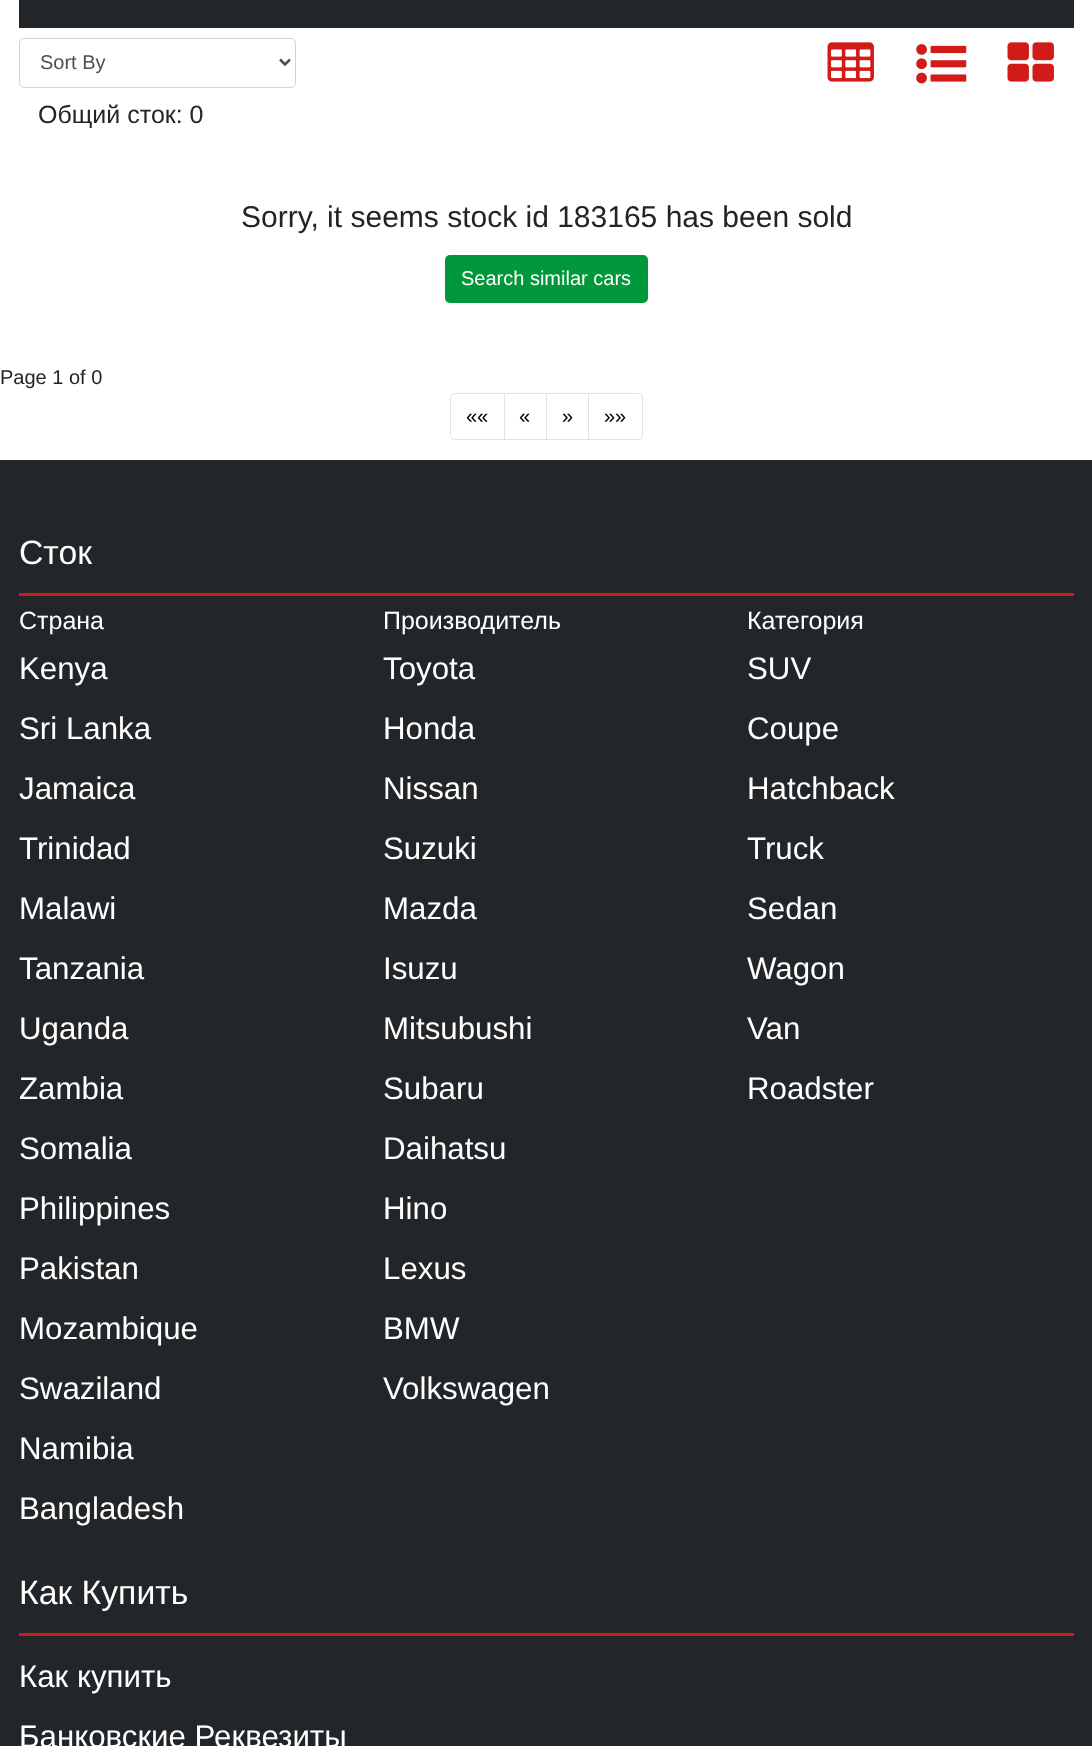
async function draw(canvas) {
	canvas.width = 1092;
	canvas.height = 1746;
	const c = canvas.getContext('2d');
	c.miterLimit = 4;
	c.fontKerning = 'normal';
	async function loadImage(src) {
		const img = new Image();
		img.src = src;
		await img.decode();
		return img;
	}

	c.fillStyle = '#fff';
	c.fillRect(0, 0, 1092, 1746);
	c.fillStyle = '#232628';
	c.fillRect(19, 0, 1055, 28);
	c.beginPath();
	c.roundRect(19.5, 38.5, 276, 49, 4.5);
	c.strokeStyle = '#ced4da';
	c.stroke();
	c.beginPath();
	c.moveTo(280, 59.5);
	c.lineTo(285, 64.5);
	c.lineTo(290, 59.5);
	c.strokeStyle = '#495057';
	c.lineWidth = 2.5;
	c.stroke();
	c.font = '20px Liberation Sans';
	c.fillStyle = '#495057';
	c.fillText('Sort By', 40, 69);
	c.drawImage(await loadImage('img1.png'), 827, 42, 47, 40);
	c.drawImage(await loadImage('img2.png'), 916, 44, 51, 40);
	c.drawImage(await loadImage('img3.png'), 1007, 42, 47, 40);
	c.font = '25px Liberation Sans';
	c.fillStyle = '#212529';
	c.fillText('Общий сток: 0', 38, 123);
	c.font = '30px Liberation Sans';
	c.fillText('Sorry, it seems stock id 183165 has been sold', 241, 227);
	c.fillStyle = '#00983a';
	c.beginPath();
	c.roundRect(445, 255, 203, 48, 5);
	c.fill();
	c.font = '20px Liberation Sans';
	c.fillStyle = '#fff';
	c.fillText('Search similar cars', 461, 285);
	c.fillStyle = '#212529';
	c.fillText('Page 1 of 0', 0, 384);
	c.beginPath();
	c.roundRect(450.5, 393.5, 54, 46, [4.5, 0, 0, 4.5]);
	c.strokeStyle = '#dee2e6';
	c.lineWidth = 1;
	c.stroke();
	c.fillStyle = '#000';
	c.fillText('««', 466, 423);
	c.strokeRect(504.5, 393.5, 43, 46);
	c.fillText('«', 519, 423);
	c.fillStyle = '#fff';
	c.fillRect(547, 394, 1, 45);
	c.strokeRect(546.5, 393.5, 42, 46);
	c.fillStyle = '#000';
	c.fillText('»', 562, 423);
	c.fillStyle = '#fff';
	c.beginPath();
	c.roundRect(588.5, 393.5, 54, 46, [0, 4.5, 4.5, 0]);
	c.fill();
	c.stroke();
	c.fillStyle = '#000';
	c.fillText('»»', 604, 423);
	c.fillStyle = '#232628';
	c.fillRect(0, 460, 1092, 1286);
	c.fillStyle = '#d01b19';
	c.fillRect(19, 593, 1055, 3);
	c.font = '33.75px Liberation Sans';
	c.fillStyle = '#fff';
	c.fillText('Сток', 19, 564);
	c.font = '25px Liberation Sans';
	c.fillText('Страна', 19, 629);
	c.font = '31.25px Liberation Sans';
	for (const [text, x, y] of [
		['Kenya', 19, 679],
		['Sri Lanka', 19, 739],
		['Jamaica', 19, 799],
		['Trinidad', 19, 859],
		['Malawi', 19, 919],
		['Tanzania', 19, 979],
		['Uganda', 19, 1039],
		['Zambia', 19, 1099],
		['Somalia', 19, 1159],
		['Philippines', 19, 1219],
		['Pakistan', 19, 1279],
		['Mozambique', 19, 1339],
		['Swaziland', 19, 1399],
		['Namibia', 19, 1459],
		['Bangladesh', 19, 1519],
	]) {
		c.fillText(text, x, y);
	}
	c.font = '25px Liberation Sans';
	c.fillText('Производитель', 383, 629);
	c.font = '31.25px Liberation Sans';
	for (const [text, x, y] of [
		['Toyota', 383, 679],
		['Honda', 383, 739],
		['Nissan', 383, 799],
		['Suzuki', 383, 859],
		['Mazda', 383, 919],
		['Isuzu', 383, 979],
		['Mitsubushi', 383, 1039],
		['Subaru', 383, 1099],
		['Daihatsu', 383, 1159],
		['Hino', 383, 1219],
		['Lexus', 383, 1279],
		['BMW', 383, 1339],
		['Volkswagen', 383, 1399],
	]) {
		c.fillText(text, x, y);
	}
	c.font = '25px Liberation Sans';
	c.fillText('Категория', 747, 629);
	c.font = '31.25px Liberation Sans';
	for (const [text, x, y] of [
		['SUV', 747, 679],
		['Coupe', 747, 739],
		['Hatchback', 747, 799],
		['Truck', 747, 859],
		['Sedan', 747, 919],
		['Wagon', 747, 979],
		['Van', 747, 1039],
		['Roadster', 747, 1099],
	]) {
		c.fillText(text, x, y);
	}
	c.fillStyle = '#d01b19';
	c.fillRect(19, 1633, 1055, 3);
	c.font = '33.75px Liberation Sans';
	c.fillStyle = '#fff';
	c.fillText('Как Купить', 19, 1604);
	c.font = '31.25px Liberation Sans';
	c.fillText('Как купить', 19, 1687);
	c.fillText('Банковские Реквезиты', 19, 1747);
}

draw(document.querySelector('canvas'));
